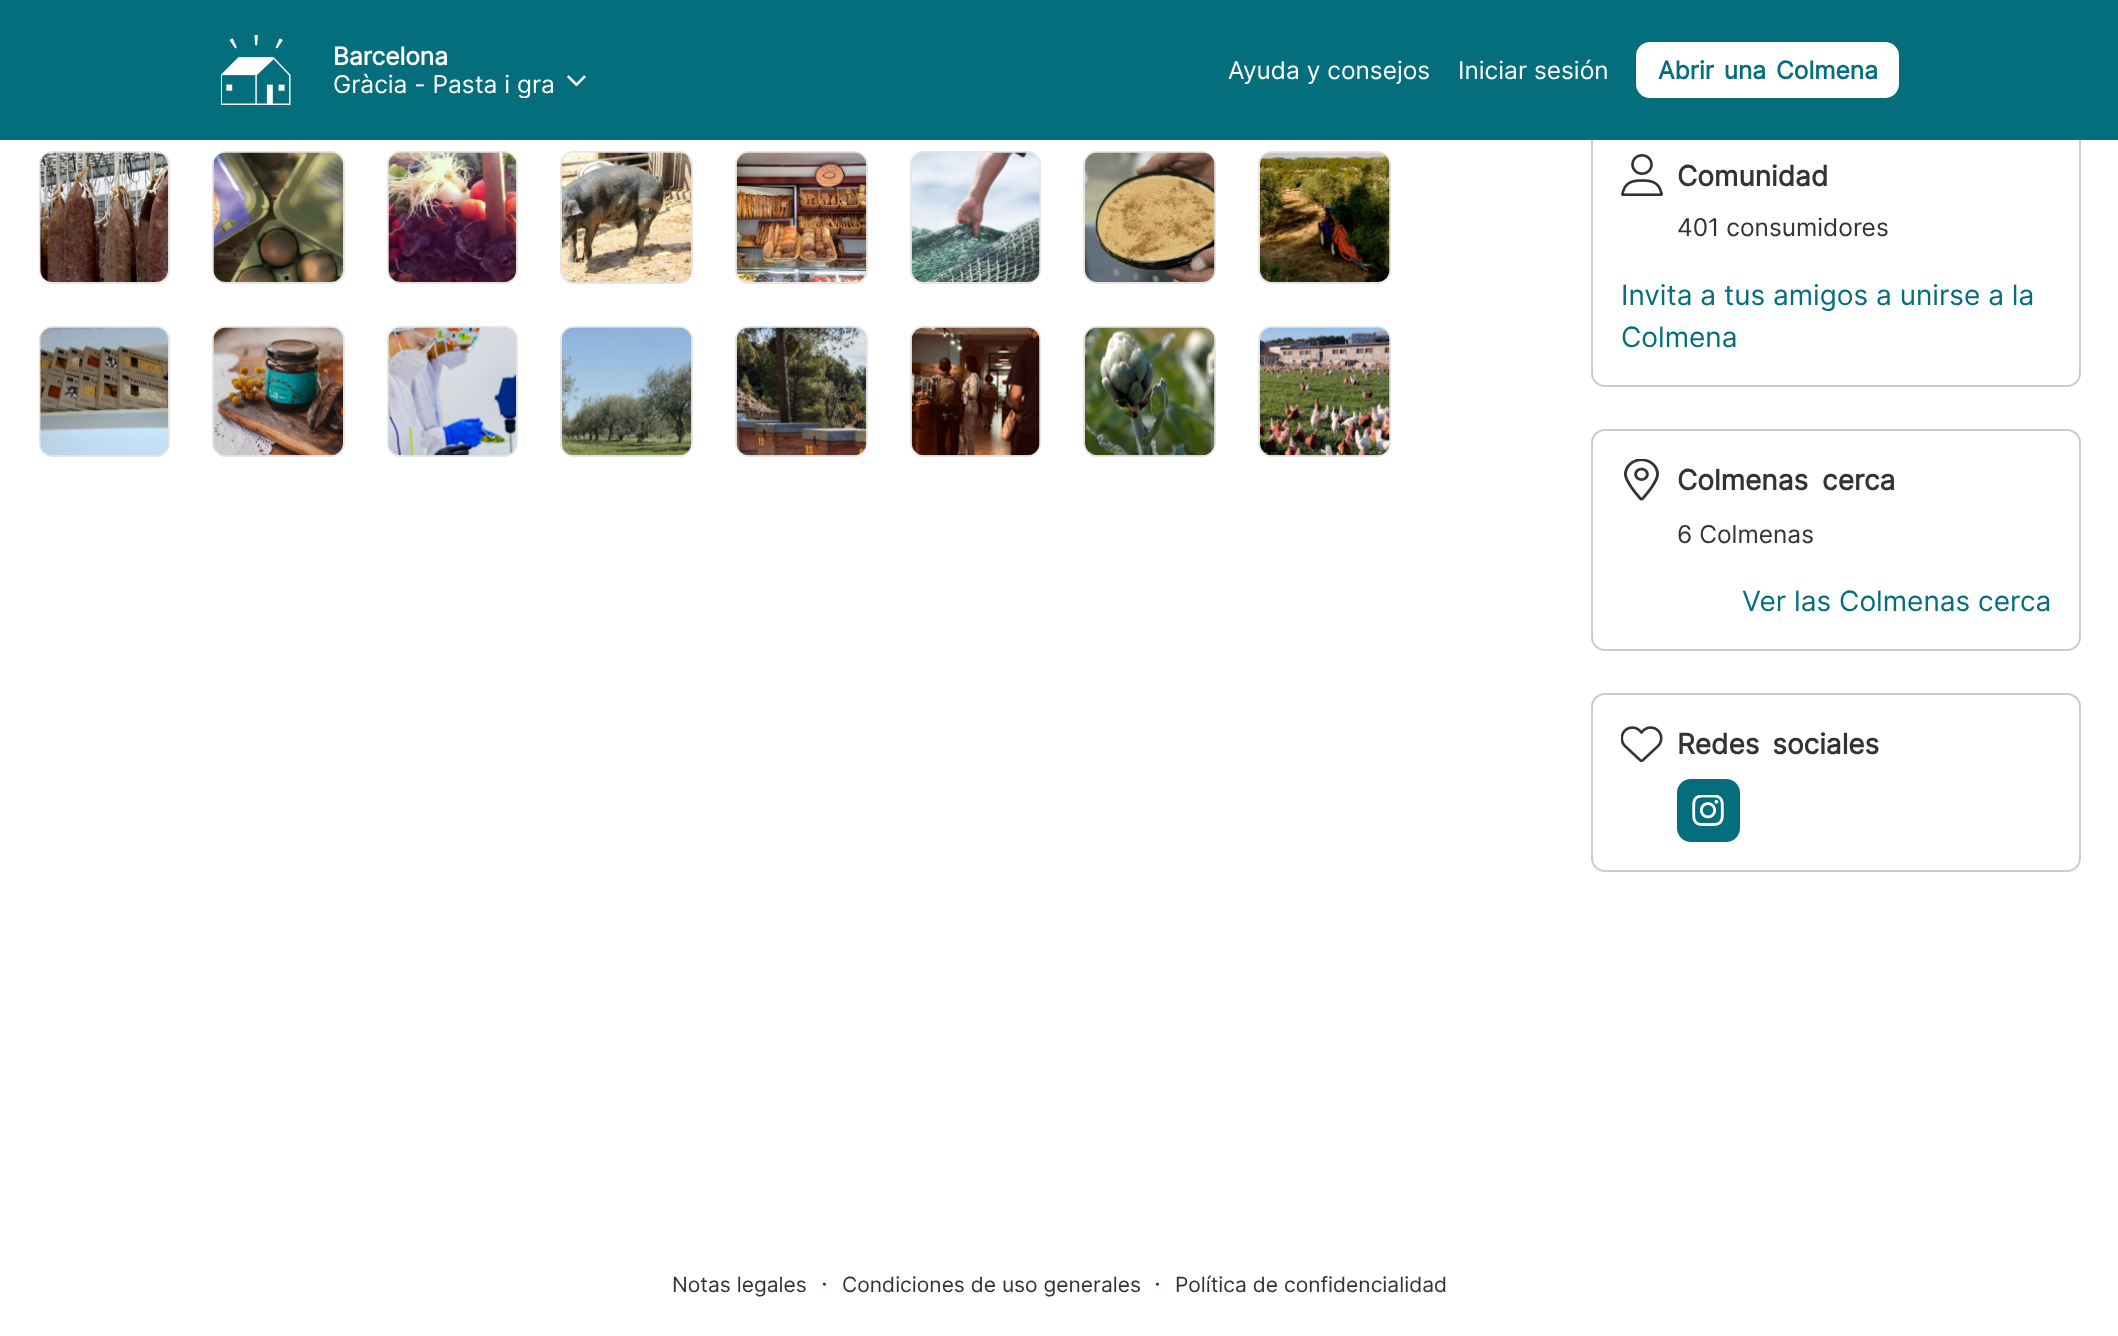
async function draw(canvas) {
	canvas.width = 2118;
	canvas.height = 1336;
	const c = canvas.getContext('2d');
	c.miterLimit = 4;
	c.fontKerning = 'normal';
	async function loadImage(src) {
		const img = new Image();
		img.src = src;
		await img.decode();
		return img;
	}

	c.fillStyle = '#fff';
	c.fillRect(0, 0, 2118, 1336);
	c.beginPath();
	c.roundRect(1592, 125, 488, 261, 13);
	c.strokeStyle = '#ccc';
	c.lineWidth = 2;
	c.stroke();
	c.fillStyle = '#056e7d';
	c.fillRect(0, 0, 2118, 140);
	c.drawImage(await loadImage('img1.png'), 221, 35, 70, 70);
	c.font = 'bold 24.5px Inter';
	c.fillStyle = '#fff';
	c.fillText('Barcelona', 333, 65);
	c.save();
	c.beginPath();
	c.rect(333, 70, 222, 28);
	c.clip();
	c.font = '24.5px Inter';
	c.fillText('Gràcia - Pasta i gra', 333, 93);
	c.restore();
	c.drawImage(await loadImage('img2.png'), 567, 75, 19, 12);
	c.font = '24.5px Inter';
	c.fillText('Ayuda y consejos', 1228, 79);
	c.fillText('Iniciar sesión', 1458, 79);
	c.beginPath();
	c.roundRect(1636, 42, 263, 56, 14);
	c.fill();
	c.wordSpacing = '3px';
	c.font = 'bold 24.5px Inter';
	c.fillStyle = '#056e7d';
	c.fillText('Abrir una Colmena', 1658, 79);
	c.beginPath();
	c.roundRect(40, 152, 129, 131, 13);
	c.strokeStyle = '#e5e5e5';
	c.stroke();
	c.drawImage(await loadImage('img3.png'), 40, 152, 128, 130);
	c.beginPath();
	c.roundRect(213, 152, 131, 131, 13);
	c.stroke();
	c.drawImage(await loadImage('img4.png'), 213, 152, 130, 130);
	c.beginPath();
	c.roundRect(388, 152, 129, 131, 13);
	c.stroke();
	c.drawImage(await loadImage('img5.png'), 388, 152, 129, 130);
	c.beginPath();
	c.roundRect(561, 152, 131, 131, 13);
	c.stroke();
	c.drawImage(await loadImage('img6.png'), 561, 152, 131, 130);
	c.beginPath();
	c.roundRect(736, 152, 131, 131, 13);
	c.stroke();
	c.drawImage(await loadImage('img7.png'), 736, 152, 131, 130);
	c.beginPath();
	c.roundRect(911, 152, 129, 131, 13);
	c.stroke();
	c.drawImage(await loadImage('img8.png'), 911, 152, 129, 130);
	c.beginPath();
	c.roundRect(1084, 152, 131, 131, 13);
	c.stroke();
	c.drawImage(await loadImage('img9.png'), 1085, 152, 130, 130);
	c.beginPath();
	c.roundRect(1259, 152, 131, 131, 13);
	c.stroke();
	c.drawImage(await loadImage('img10.png'), 1260, 152, 130, 130);
	c.beginPath();
	c.roundRect(40, 327, 129, 129, 13);
	c.stroke();
	c.drawImage(await loadImage('img11.png'), 40, 327, 128, 128);
	c.beginPath();
	c.roundRect(213, 327, 131, 129, 13);
	c.stroke();
	c.drawImage(await loadImage('img12.png'), 213, 327, 130, 129);
	c.beginPath();
	c.roundRect(388, 327, 129, 129, 13);
	c.stroke();
	c.drawImage(await loadImage('img13.png'), 388, 327, 129, 129);
	c.beginPath();
	c.roundRect(561, 327, 131, 129, 13);
	c.stroke();
	c.drawImage(await loadImage('img14.png'), 561, 327, 131, 129);
	c.beginPath();
	c.roundRect(736, 327, 131, 129, 13);
	c.stroke();
	c.drawImage(await loadImage('img15.png'), 736, 327, 131, 129);
	c.beginPath();
	c.roundRect(911, 327, 129, 129, 13);
	c.stroke();
	c.drawImage(await loadImage('img16.png'), 911, 327, 129, 129);
	c.beginPath();
	c.roundRect(1084, 327, 131, 129, 13);
	c.stroke();
	c.drawImage(await loadImage('img17.png'), 1085, 327, 130, 129);
	c.beginPath();
	c.roundRect(1259, 327, 131, 129, 13);
	c.stroke();
	c.drawImage(await loadImage('img18.png'), 1260, 327, 130, 129);
	c.drawImage(await loadImage('img19.png'), 1621, 154, 42, 42);
	c.wordSpacing = '0px';
	c.font = 'bold 28px Inter';
	c.fillStyle = '#333';
	c.fillText('Comunidad', 1677, 186);
	c.font = '24.5px Inter';
	c.fillText('401 consumidores', 1677, 236);
	c.font = '28px Inter';
	c.fillStyle = '#056e7d';
	c.fillText('Invita a tus amigos a unirse a la', 1621, 305);
	c.fillText('Colmena', 1621, 347);
	c.beginPath();
	c.roundRect(1592, 430, 488, 220, 13);
	c.strokeStyle = '#ccc';
	c.stroke();
	c.drawImage(await loadImage('img20.png'), 1624, 459, 35, 42);
	c.wordSpacing = '6px';
	c.font = 'bold 28px Inter';
	c.fillStyle = '#333';
	c.fillText('Colmenas cerca', 1677, 490);
	c.wordSpacing = '0px';
	c.font = '24.5px Inter';
	c.fillText('6 Colmenas', 1677, 543);
	c.font = '28px Inter';
	c.fillStyle = '#056e7d';
	c.fillText('Ver las Colmenas cerca', 1742, 611);
	c.beginPath();
	c.roundRect(1592, 694, 488, 177, 13);
	c.stroke();
	c.drawImage(await loadImage('img21.png'), 1621, 726, 42, 37);
	c.wordSpacing = '5px';
	c.font = 'bold 28px Inter';
	c.fillStyle = '#333';
	c.fillText('Redes sociales', 1677, 754);
	c.fillStyle = '#056e7d';
	c.beginPath();
	c.roundRect(1677, 779, 63, 63, 14);
	c.fill();
	c.drawImage(await loadImage('img22.png'), 1692, 795, 32, 31);
	c.wordSpacing = '0px';
	c.font = '21px Inter';
	c.fillStyle = '#333';
	c.fillText('Notas legales', 672, 1292);
	c.font = '24.5px Inter';
	c.fillStyle = '#5c272f';
	c.fillText('·', 821, 1292);
	c.font = '21px Inter';
	c.fillStyle = '#333';
	c.fillText('Condiciones de uso generales', 842, 1292);
	c.font = '24.5px Inter';
	c.fillStyle = '#5c272f';
	c.fillText('·', 1154, 1292);
	c.font = '21px Inter';
	c.fillStyle = '#333';
	c.fillText('Política de confidencialidad', 1175, 1292);
}

draw(document.querySelector('canvas'));
